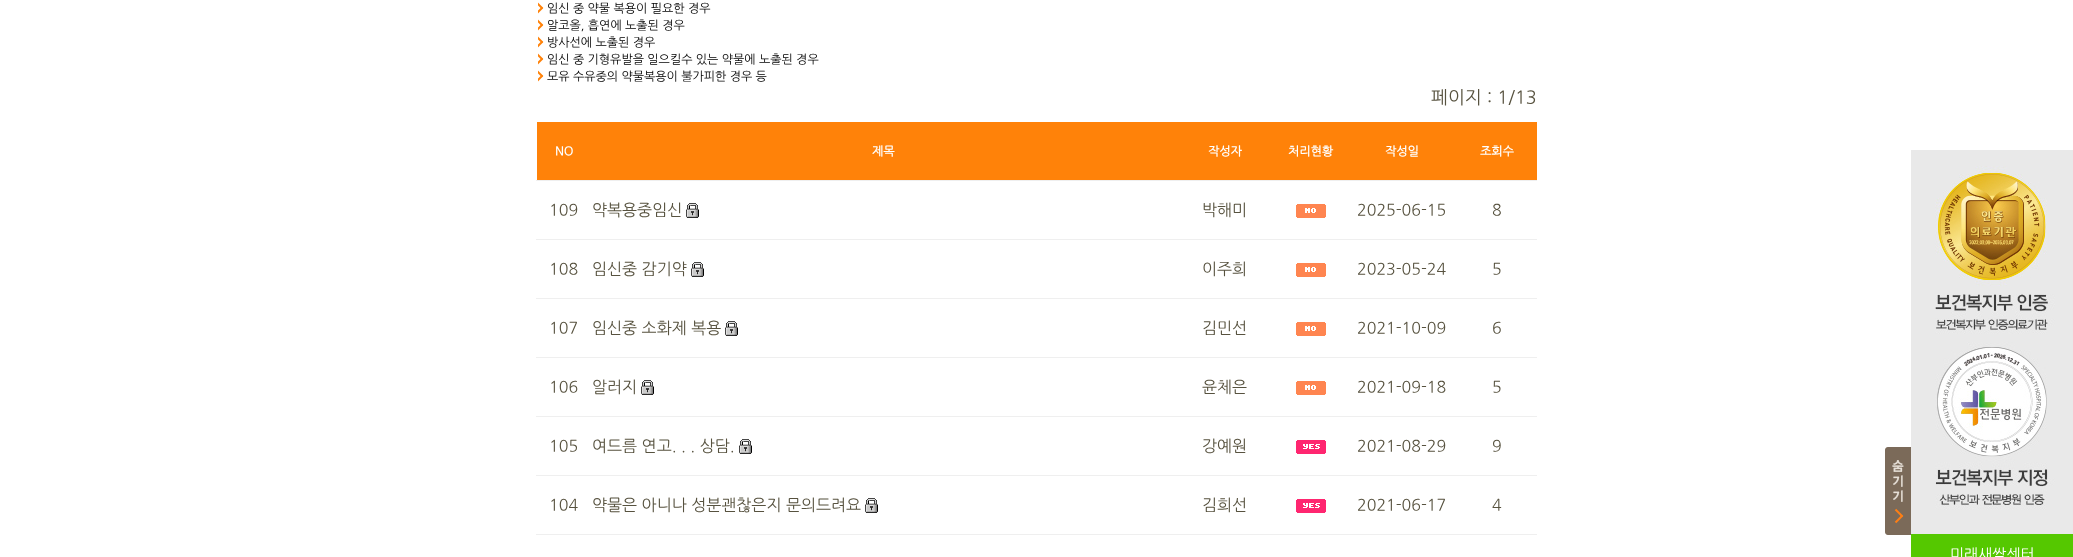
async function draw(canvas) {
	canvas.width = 2073;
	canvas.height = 557;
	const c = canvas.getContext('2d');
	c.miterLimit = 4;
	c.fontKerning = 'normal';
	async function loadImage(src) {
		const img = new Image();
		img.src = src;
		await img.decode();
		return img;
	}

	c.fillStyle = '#fff';
	c.fillRect(0, 0, 2073, 557);
	c.drawImage(await loadImage('img1.png'), 538, 2, 6, 12);
	c.font = '12px NanumGothic';
	c.fillStyle = '#000';
	c.fillText('임신 중 약물 복용이 필요한 경우', 547, 12);
	c.drawImage(await loadImage('img1.png'), 538, 19, 6, 12);
	c.fillText('알코올, 흡연에 노출된 경우', 547, 29);
	c.drawImage(await loadImage('img1.png'), 538, 36, 6, 12);
	c.fillText('방사선에 노출된 경우', 547, 46);
	c.drawImage(await loadImage('img1.png'), 538, 53, 6, 12);
	c.fillText('임신 중 기형유발을 일으킬수 있는 약물에 노출된 경우', 547, 63);
	c.drawImage(await loadImage('img1.png'), 538, 70, 6, 12);
	c.fillText('모유 수유중의 약물복용이 불가피한 경우 등', 547, 80);
	c.font = '18px NanumGothic';
	c.fillStyle = '#57523f';
	c.fillText('페이지 : 1/13', 1431, 103);
	c.fillStyle = '#ff8209';
	c.fillRect(537, 122, 1000, 58);
	c.font = 'bold 12px NanumGothic';
	c.fillStyle = '#fff';
	for (const [text, x, y] of [
		['NO', 555, 155],
		['제목', 872, 155],
		['작성자', 1208, 155],
		['처리현황', 1288, 155],
		['작성일', 1385, 155],
	]) {
		c.fillText(text, x, y);
	}
	c.fillStyle = '#efefef';
	c.fillRect(536, 180, 1001, 1);
	c.fillStyle = '#fff';
	c.fillText('조회수', 1480, 155);
	c.font = '16px NanumGothic';
	c.fillStyle = '#57523f';
	c.fillText('109', 549, 215);
	c.fillText('약복용중임신', 592, 215);
	c.drawImage(await loadImage('img2.png'), 686, 203, 13, 15);
	c.fillText('박해미', 1202, 215);
	c.drawImage(await loadImage('img3.png'), 1296, 204, 30, 14);
	c.fillText('2025-06-15', 1357, 215);
	c.fillStyle = '#efefef';
	c.fillRect(536, 239, 1001, 1);
	c.fillStyle = '#57523f';
	for (const [text, x, y] of [
		['8', 1492, 215],
		['108', 549, 274],
		['임신중 감기약', 592, 274],
	]) {
		c.fillText(text, x, y);
	}
	c.drawImage(await loadImage('img2.png'), 691, 262, 13, 15);
	c.fillText('이주희', 1202, 274);
	c.drawImage(await loadImage('img3.png'), 1296, 263, 30, 14);
	c.fillText('2023-05-24', 1357, 274);
	c.fillStyle = '#efefef';
	c.fillRect(536, 298, 1001, 1);
	c.fillStyle = '#57523f';
	for (const [text, x, y] of [
		['5', 1492, 274],
		['107', 549, 333],
		['임신중 소화제 복용', 592, 333],
	]) {
		c.fillText(text, x, y);
	}
	c.drawImage(await loadImage('img2.png'), 725, 321, 13, 15);
	c.fillText('김민선', 1202, 333);
	c.drawImage(await loadImage('img3.png'), 1296, 322, 30, 14);
	c.fillText('2021-10-09', 1357, 333);
	c.fillStyle = '#efefef';
	c.fillRect(536, 357, 1001, 1);
	c.fillStyle = '#57523f';
	for (const [text, x, y] of [
		['6', 1492, 333],
		['106', 549, 392],
		['알러지', 592, 392],
	]) {
		c.fillText(text, x, y);
	}
	c.drawImage(await loadImage('img2.png'), 641, 380, 13, 15);
	c.fillText('윤체은', 1202, 392);
	c.drawImage(await loadImage('img3.png'), 1296, 381, 30, 14);
	c.fillText('2021-09-18', 1357, 392);
	c.fillStyle = '#efefef';
	c.fillRect(536, 416, 1001, 1);
	c.fillStyle = '#57523f';
	for (const [text, x, y] of [
		['5', 1492, 392],
		['105', 549, 451],
		['여드름 연고. . . 상담.', 592, 451],
	]) {
		c.fillText(text, x, y);
	}
	c.drawImage(await loadImage('img2.png'), 739, 439, 13, 15);
	c.fillText('강예원', 1202, 451);
	c.drawImage(await loadImage('img4.png'), 1296, 440, 30, 14);
	c.fillText('2021-08-29', 1357, 451);
	c.fillStyle = '#efefef';
	c.fillRect(536, 475, 1001, 1);
	c.fillStyle = '#57523f';
	for (const [text, x, y] of [
		['9', 1492, 451],
		['104', 549, 510],
		['약물은 아니나 성분괜찮은지 문의드려요', 592, 510],
	]) {
		c.fillText(text, x, y);
	}
	c.drawImage(await loadImage('img2.png'), 865, 498, 13, 15);
	c.fillText('김희선', 1202, 510);
	c.drawImage(await loadImage('img4.png'), 1296, 499, 30, 14);
	c.fillText('2021-06-17', 1357, 510);
	c.fillStyle = '#efefef';
	c.fillRect(536, 534, 1001, 1);
	c.fillStyle = '#57523f';
	c.fillText('4', 1492, 510);
	c.drawImage(await loadImage('img5.png'), 1885, 447, 26, 88);
	c.drawImage(await loadImage('img6.png'), 1911, 150, 162, 384);
	c.fillStyle = '#55c800';
	c.fillRect(1911, 534, 162, 23);
	c.font = '15px NanumGothic';
	c.fillStyle = '#fff';
	c.fillText('미래새싹센터', 1950, 559);
}

draw(document.querySelector('canvas'));
